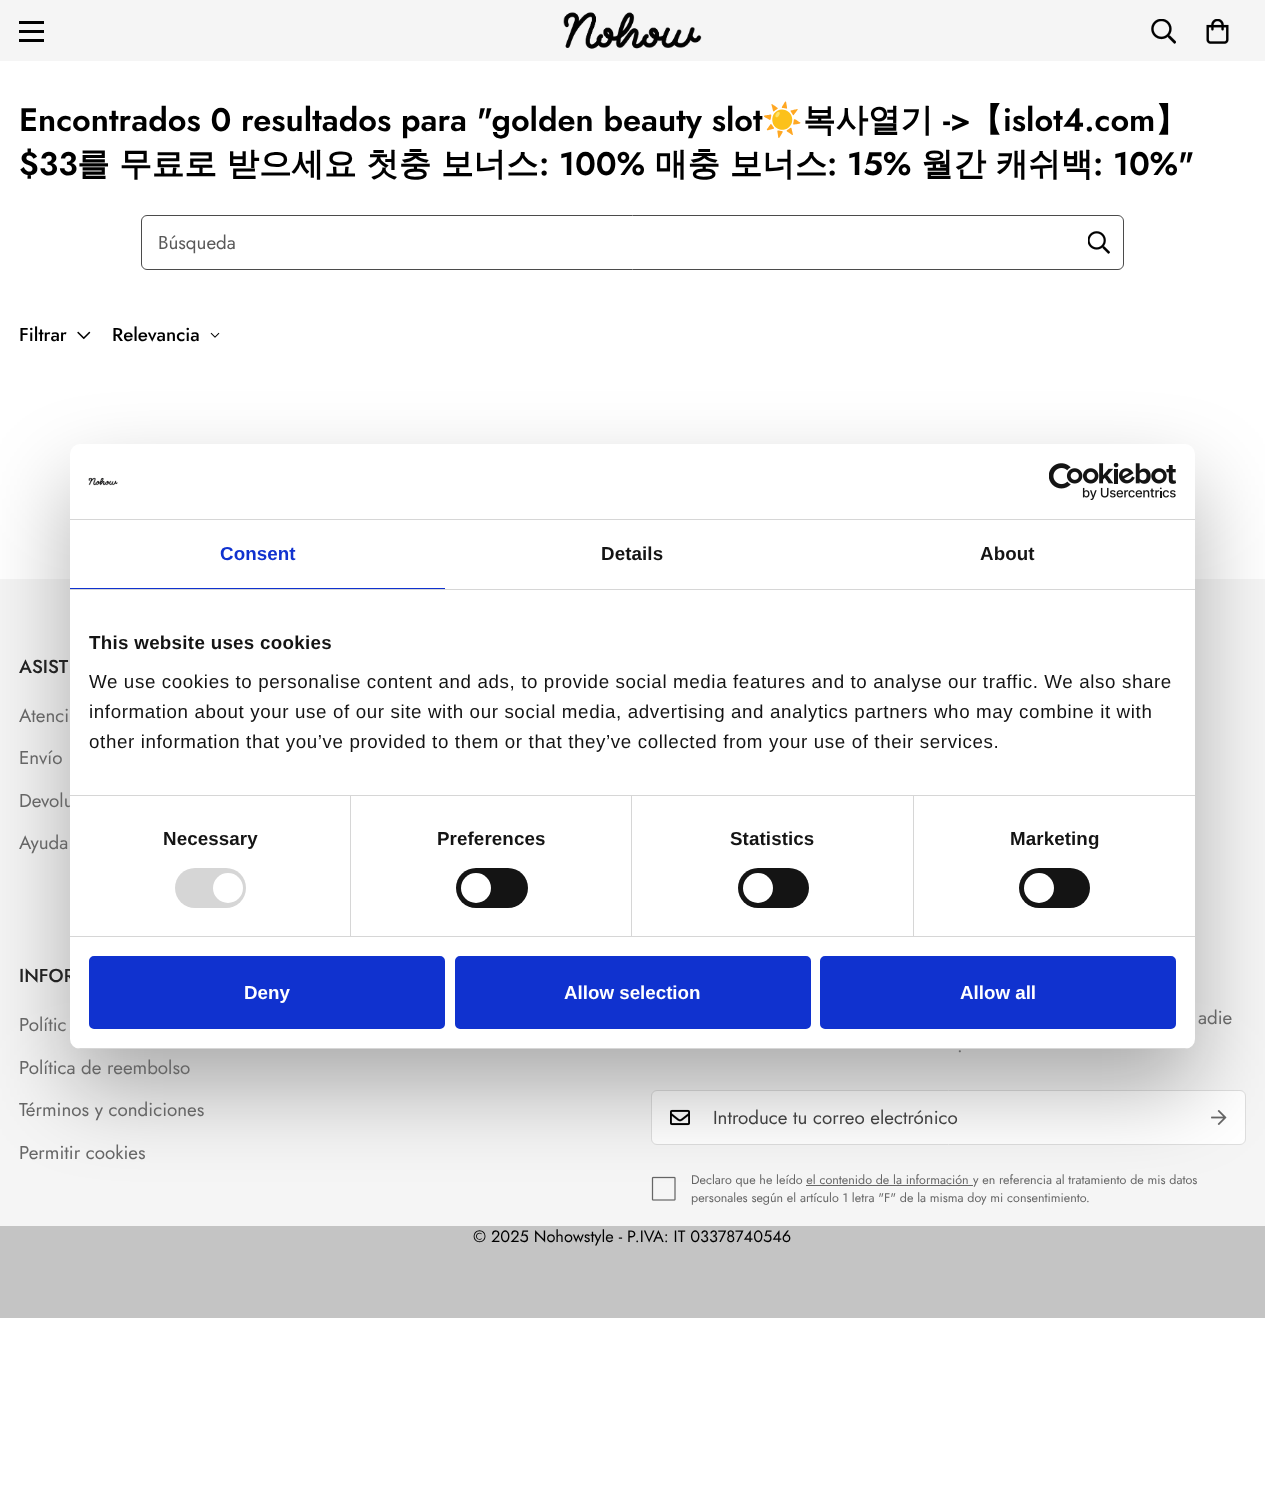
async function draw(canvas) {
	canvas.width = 1265;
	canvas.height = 1492;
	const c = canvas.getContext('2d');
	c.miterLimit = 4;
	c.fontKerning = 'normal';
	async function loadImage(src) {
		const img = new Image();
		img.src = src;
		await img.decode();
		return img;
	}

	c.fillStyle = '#fff';
	c.fillRect(0, 0, 1265, 1492);
	for (const [x, y, w, h, color] of [
		[0, 0, 1265, 61, '#f5f5f5'],
		[19, 30, 25, 3, '#000'],
		[19, 21, 25, 3, '#000'],
		[19, 39, 25, 3, '#000'],
	]) {
		c.fillStyle = color;
		c.fillRect(x, y, w, h);
	}
	c.drawImage(await loadImage('img1.png'), 563, 12, 139, 37);
	c.drawImage(await loadImage('img2.png'), 1151, 19, 25, 25);
	c.drawImage(await loadImage('img3.png'), 1206, 19, 23, 25);
	c.font = '600 32.5px Jost';
	c.fillText('Encontrados 0 resultados para "golden beauty slot', 19, 131);
	c.font = 'bold 32.5px Noto Color Emoji';
	c.fillText('☀️', 762, 131);
	c.font = 'bold 32.5px WenQuanYi Zen Hei';
	c.fillText('복사열기', 803, 131);
	c.font = '600 32.5px Jost';
	c.fillText('->', 943, 131);
	c.font = 'bold 32.5px WenQuanYi Zen Hei';
	c.fillText('【', 970, 131);
	c.font = '600 32.5px Jost';
	c.fillText('islot4.com', 1003, 131);
	c.font = 'bold 32.5px WenQuanYi Zen Hei';
	c.fillText('】', 1155, 131);
	c.font = '600 32.5px Jost';
	c.fillText('$33', 19, 175);
	c.font = 'bold 32.5px WenQuanYi Zen Hei';
	c.fillText('를 무료로 받으세요 첫충 보너스', 77, 175);
	c.font = '600 32.5px Jost';
	c.fillText(': 100%', 539, 175);
	c.font = 'bold 32.5px WenQuanYi Zen Hei';
	c.fillText('매충 보너스', 655, 175);
	c.font = '600 32.5px Jost';
	c.fillText(': 15%', 827, 175);
	c.font = 'bold 32.5px WenQuanYi Zen Hei';
	c.fillText('월간 캐쉬백', 921, 175);
	c.font = '600 32.5px Jost';
	c.fillText(': 10%"', 1093, 175);
	c.beginPath();
	c.roundRect(141.5, 215.5, 982, 54, 5.5);
	c.strokeStyle = '#4b4b4b';
	c.stroke();
	c.font = '18.75px Jost';
	c.fillStyle = '#595959';
	c.fillText('Búsqueda', 158, 249);
	c.drawImage(await loadImage('img4.png'), 1088, 231, 22, 23);
	c.font = '500 18.75px Jost';
	c.fillStyle = '#000';
	c.fillText('Filtrar', 19, 341);
	c.drawImage(await loadImage('img5.png'), 77, 331, 14, 9);
	c.fillText('Relevancia', 112, 341);
	c.drawImage(await loadImage('img6.png'), 210, 332, 10, 6);
	c.fillStyle = '#f5f5f5';
	c.fillRect(0, 579, 1265, 647);
	c.fillStyle = '#fff';
	c.beginPath();
	c.roundRect(651.5, 1090.5, 594, 54, 5.5);
	c.fill();
	c.strokeStyle = '#dedede';
	c.stroke();
	c.drawImage(await loadImage('img9.png'), 670, 1109, 20, 17);
	c.drawImage(await loadImage('img10.png'), 1211, 1110, 16, 15);
	c.drawImage(await loadImage('img11.png'), 651, 1176, 25, 25);
	c.fillStyle = '#666';
	c.fillRect(806, 1185, 167, 1);
	c.fillStyle = '#0000004d';
	c.filter = 'blur(42.5px)';
	c.beginPath();
	c.roundRect(70, 484, 1125, 605, 10);
	c.fill();
	c.filter = 'none';
	c.font = '18.75px Jost';
	c.fillStyle = '#666';
	c.fillText('Devolu', 19, 807);
	c.font = '500 18.75px Jost';
	c.fillStyle = '#222';
	c.fillText('INFOR', 19, 982);
	c.fillStyle = '#fff';
	c.beginPath();
	c.roundRect(70, 444, 1125, 605, 10);
	c.fill();
	c.fillStyle = '#d6d6d6';
	c.fillRect(70, 519, 1125, 1);
	c.drawImage(await loadImage('img7.png'), 88, 477, 30, 9);
	c.drawImage(await loadImage('img8.png'), 1049, 463, 127, 37);
	c.fillRect(70, 589, 1125, 1);
	c.fillStyle = '#1032cf';
	c.fillRect(70, 588, 375, 1);
	c.letterSpacing = '0.1px';
	c.font = 'bold 18.75px Liberation Sans';
	c.fillText('Consent', 220, 560);
	c.fillStyle = '#141414';
	c.fillText('Details', 601, 560);
	c.fillText('About', 980, 560);
	c.fillStyle = '#d6d6d6';
	c.fillRect(70, 795, 1125, 1);
	c.letterSpacing = '0.3px';
	c.fillStyle = '#141414';
	c.fillText('This website uses cookies', 89, 649);
	c.letterSpacing = '0.62px';
	c.font = '18.75px Liberation Sans';
	for (const [text, x, y] of [
		['We use cookies to personalise content and ads, to provide social media features and to analyse our traffic. We also share', 89, 688],
		['information about your use of our site with our social media, advertising and analytics partners who may combine it with', 89, 718],
		['other information that you’ve provided to them or that they’ve collected from your use of their services.', 89, 748],
	]) {
		c.fillText(text, x, y);
	}
	c.fillStyle = '#d6d6d6';
	c.fillRect(70, 936, 1125, 1);
	c.fillRect(350, 796, 1, 140);
	c.letterSpacing = '0.1px';
	c.font = 'bold 18.75px Liberation Sans';
	c.fillStyle = '#141414';
	c.fillText('Necessary', 163, 845);
	c.fillStyle = '#d6d6d6';
	c.beginPath();
	c.roundRect(175, 868, 71, 40, 20);
	c.fill();
	c.fillStyle = '#fff';
	c.beginPath();
	c.arc(228, 888, 15, 0, 2 * Math.PI);
	c.fill();
	c.fillStyle = '#d6d6d6';
	c.fillRect(631, 796, 1, 140);
	c.fillStyle = '#141414';
	c.fillText('Preferences', 437, 845);
	c.beginPath();
	c.roundRect(456, 868, 72, 40, 20);
	c.fill();
	c.fillStyle = '#fff';
	c.beginPath();
	c.arc(476, 888, 15, 0, 2 * Math.PI);
	c.fill();
	c.fillStyle = '#d6d6d6';
	c.fillRect(913, 796, 1, 140);
	c.fillStyle = '#141414';
	c.fillText('Statistics', 730, 845);
	c.beginPath();
	c.roundRect(738, 868, 71, 40, 20);
	c.fill();
	c.fillStyle = '#fff';
	c.beginPath();
	c.arc(758, 888, 15, 0, 2 * Math.PI);
	c.fill();
	c.fillStyle = '#141414';
	c.fillText('Marketing', 1010, 845);
	c.beginPath();
	c.roundRect(1019, 868, 71, 40, 20);
	c.fill();
	c.fillStyle = '#fff';
	c.beginPath();
	c.arc(1039, 888, 15, 0, 2 * Math.PI);
	c.fill();
	c.save();
	c.beginPath();
	c.roundRect(70, 444, 1125, 605, 10);
	c.clip();
	c.fillStyle = '#d6d6d6';
	c.fillRect(70, 1048, 1125, 1);
	c.restore();
	c.fillStyle = '#1032cf';
	c.beginPath();
	c.roundRect(90.5, 957.5, 353, 70, 3.5);
	c.fill();
	c.strokeStyle = '#1032cf';
	c.lineWidth = 3;
	c.stroke();
	c.letterSpacing = '0px';
	c.fillStyle = '#fff';
	c.fillText('Deny', 244, 999);
	c.fillStyle = '#1032cf';
	c.beginPath();
	c.roundRect(456.5, 957.5, 353, 70, 3.5);
	c.fill();
	c.stroke();
	c.fillStyle = '#fff';
	c.fillText('Allow selection', 564, 999);
	c.fillStyle = '#1032cf';
	c.beginPath();
	c.roundRect(821.5, 957.5, 353, 70, 3.5);
	c.fill();
	c.stroke();
	c.fillStyle = '#fff';
	c.fillText('Allow all', 960, 999);
	c.font = '500 18.75px Jost';
	c.fillStyle = '#222';
	c.fillText('ASIST', 19, 673);
	c.font = '18.75px Jost';
	c.fillStyle = '#666';
	for (const [text, x, y] of [
		['Atenci', 19, 722],
		['Envío', 19, 764],
		['Ayuda', 19, 849],
		['Polític', 19, 1031],
		['Política de reembolso', 19, 1074],
		['Términos y condiciones', 19, 1116],
		['Permitir cookies', 19, 1159],
		['adie', 1198, 1024],
		['.', 957, 1052],
	]) {
		c.fillText(text, x, y);
	}
	c.fillStyle = '#404040';
	c.fillText('Introduce tu correo electrónico', 713, 1124);
	c.font = '12.5px Jost';
	c.fillStyle = '#666';
	for (const [text, x, y] of [
		['Declaro que he leído el contenido de la información', 691, 1184],
		['y en referencia al tratamiento de mis datos', 973, 1184],
		['personales según el artículo 1 letra "F" de la misma doy mi consentimiento.', 691, 1202],
	]) {
		c.fillText(text, x, y);
	}
	c.fillStyle = '#c4c4c4';
	c.fillRect(0, 1226, 1265, 92);
	c.font = '16.4px Jost';
	c.fillStyle = '#000';
	c.fillText('© 2025 Nohowstyle - P.IVA: IT 03378740546', 473, 1242);
}

draw(document.querySelector('canvas'));
